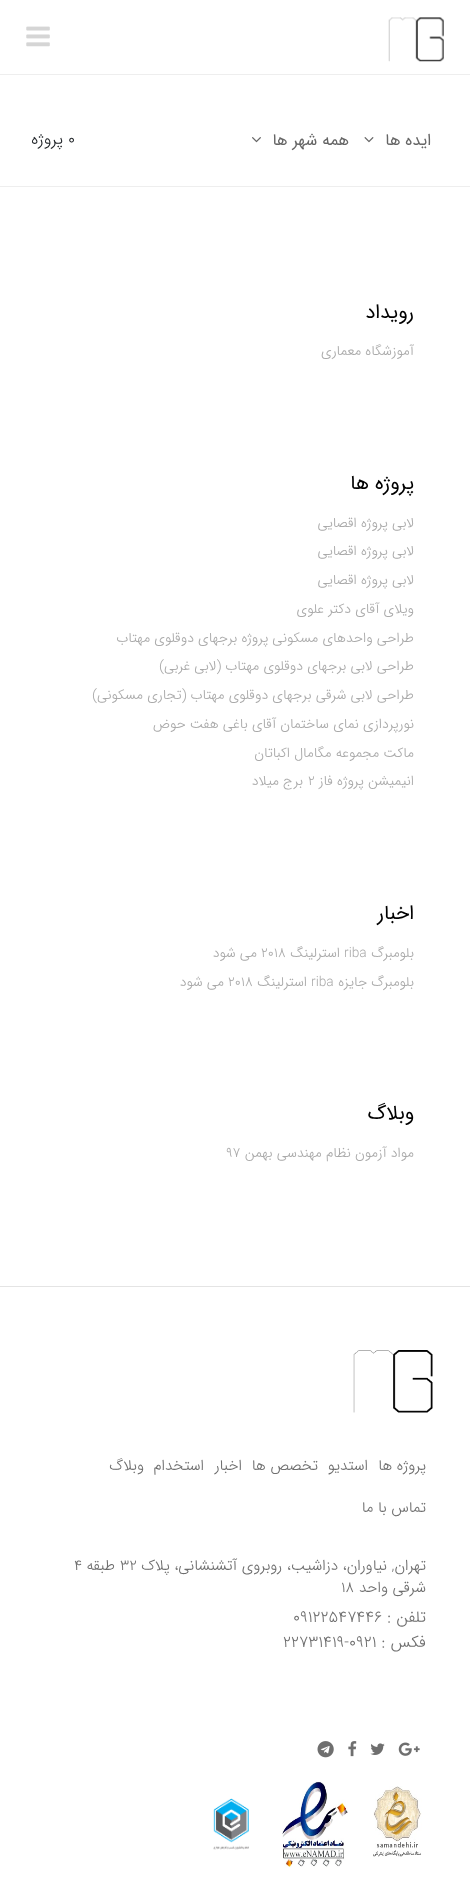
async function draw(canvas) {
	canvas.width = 470;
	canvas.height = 1890;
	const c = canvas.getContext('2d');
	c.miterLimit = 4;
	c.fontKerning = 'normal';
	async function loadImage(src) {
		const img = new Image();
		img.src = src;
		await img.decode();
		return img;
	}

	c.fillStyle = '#fff';
	c.fillRect(0, 0, 470, 1890);
	c.fillStyle = '#eee';
	c.fillRect(0, 74, 470, 1);
	c.drawImage(await loadImage('img1.png'), 388, 17, 56, 45);
	c.drawImage(await loadImage('img2.png'), 26, 26, 24, 21);
	c.fillRect(0, 186, 470, 1);
	c.direction = 'rtl';
	c.font = '16.25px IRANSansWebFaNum';
	c.fillStyle = '#666';
	c.fillText('ایده ها', 431, 145);
	c.drawImage(await loadImage('img3.png'), 364, 137, 10, 6);
	c.fillText('همه شهر ها', 349, 145);
	c.drawImage(await loadImage('img4.png'), 252, 137, 9, 6);
	c.direction = 'ltr';
	c.font = '300 16.25px IRANSansWebFaNum';
	c.fillStyle = '#212529';
	c.fillText('0', 68, 144);
	c.direction = 'rtl';
	c.fillText('پروژه', 63, 144);
	c.font = '20px IRANSansWebFaNum';
	c.fillStyle = '#000';
	c.fillText('رویداد', 414, 318);
	c.font = '300 13.75px IRANSansWebFaNum';
	c.fillStyle = '#aaa';
	c.fillText('آموزشگاه معماری', 414, 355);
	c.font = '20px IRANSansWebFaNum';
	c.fillStyle = '#000';
	c.fillText('پروژه ها', 414, 489);
	c.font = '300 13.75px IRANSansWebFaNum';
	c.fillStyle = '#aaa';
	for (const [text, x, y] of [
		['لابی پروژه اقصایی', 414, 527],
		['لابی پروژه اقصایی', 414, 555],
		['لابی پروژه اقصایی', 414, 584],
		['ویلای آقای دکتر علوی', 414, 613],
		['طراحی واحدهای مسکونی پروژه برجهای دوقلوی مهتاب', 414, 642],
		['طراحی لابی برجهای دوقلوی مهتاب (لابی غربی)', 414, 670],
		['طراحی لابی شرقی برجهای دوقلوی مهتاب (تجاری مسکونی)', 414, 699],
		['نورپردازی نمای ساختمان آقای باغی هفت حوض', 414, 728],
		['ماکت مجموعه مگامال اکباتان', 414, 757],
		['انیمیشن پروژه فاز', 414, 785],
	]) {
		c.fillText(text, x, y);
	}
	c.direction = 'ltr';
	c.fillText('2', 308, 785);
	c.direction = 'rtl';
	c.fillText('برج میلاد', 303, 785);
	c.font = '20px IRANSansWebFaNum';
	c.fillStyle = '#000';
	c.fillText('اخبار', 414, 919);
	c.font = '300 13.75px IRANSansWebFaNum';
	c.fillStyle = '#aaa';
	c.fillText('بلومبرگ', 414, 957);
	c.direction = 'ltr';
	c.fillText('riba', 344, 957);
	c.direction = 'rtl';
	c.fillText('استرلینگ', 340, 957);
	c.direction = 'ltr';
	c.fillText('2018', 261, 957);
	c.direction = 'rtl';
	c.fillText('می شود', 257, 957);
	c.fillText('بلومبرگ جایزه', 414, 986);
	c.direction = 'ltr';
	c.fillText('riba', 311, 986);
	c.direction = 'rtl';
	c.fillText('استرلینگ', 307, 986);
	c.direction = 'ltr';
	c.fillText('2018', 228, 986);
	c.direction = 'rtl';
	c.fillText('می شود', 224, 986);
	c.font = '20px IRANSansWebFaNum';
	c.fillStyle = '#000';
	c.fillText('وبلاگ', 414, 1119);
	c.font = '300 13.75px IRANSansWebFaNum';
	c.fillStyle = '#aaa';
	c.fillText('مواد آزمون نظام مهندسی بهمن', 414, 1157);
	c.direction = 'ltr';
	c.fillText('۹۷', 226, 1157);
	c.fillStyle = '#e4e4e4';
	c.fillRect(0, 1286, 470, 1);
	c.drawImage(await loadImage('img5.png'), 353, 1350, 80, 63);
	c.direction = 'rtl';
	c.font = '300 15px IRANSansWebFaNum';
	c.fillStyle = '#6f6f6f';
	for (const [text, x, y] of [
		['پروژه ها', 426, 1470],
		['استدیو', 368, 1470],
		['تخصص ها', 318, 1470],
		['اخبار', 242, 1470],
		['استخدام', 204, 1470],
		['وبلاگ', 144, 1470],
		['تماس با ما', 426, 1512],
		['تهران, نیاوران، دزاشیب، روبروی آتشنشانی، پلاک', 426, 1570],
	]) {
		c.fillText(text, x, y);
	}
	c.direction = 'ltr';
	c.fillText('32', 120, 1570);
	c.direction = 'rtl';
	c.fillText('طبقه', 115, 1570);
	c.direction = 'ltr';
	c.fillText('4', 74, 1570);
	c.direction = 'rtl';
	c.fillText('شرقی واحد', 426, 1592);
	c.direction = 'ltr';
	c.fillText('18', 341, 1592);
	c.direction = 'rtl';
	c.font = '300 16.25px IRANSansWebFaNum';
	c.fillText('تلفن :', 426, 1622);
	c.direction = 'ltr';
	c.fillText('09122547446', 293, 1622);
	c.direction = 'rtl';
	c.fillText('فکس :', 426, 1647);
	c.direction = 'ltr';
	c.fillText('22731419-0921', 283, 1647);
	c.drawImage(await loadImage('img6.png'), 398, 1742, 22, 14);
	c.drawImage(await loadImage('img7.png'), 370, 1743, 15, 12);
	c.drawImage(await loadImage('img8.png'), 348, 1741, 9, 16);
	c.drawImage(await loadImage('img9.png'), 317, 1741, 17, 17);
	c.drawImage(await loadImage('img10.png'), 373, 1786, 49, 71);
	c.drawImage(await loadImage('img11.png'), 282, 1781, 66, 87);
	c.drawImage(await loadImage('img12.png'), 213, 1798, 36, 52);
}

draw(document.querySelector('canvas'));
